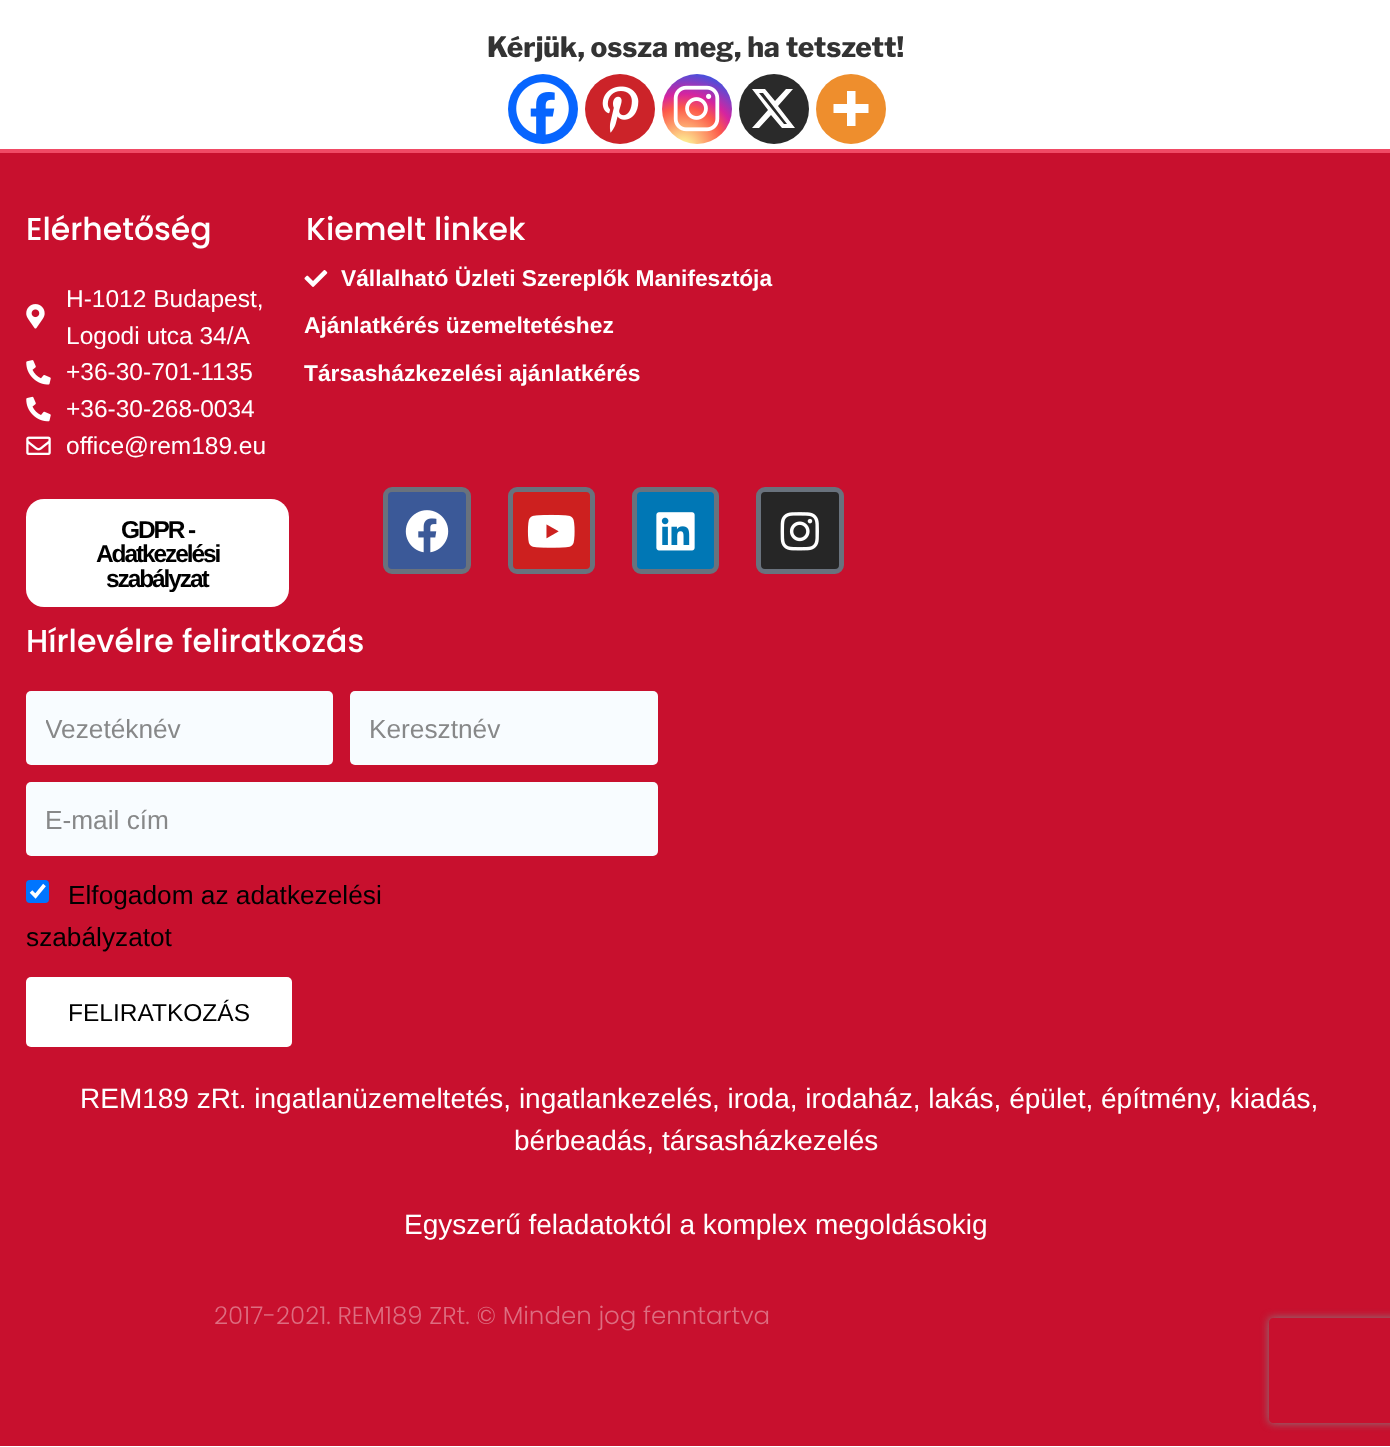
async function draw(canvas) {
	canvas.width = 1390;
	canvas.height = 1447;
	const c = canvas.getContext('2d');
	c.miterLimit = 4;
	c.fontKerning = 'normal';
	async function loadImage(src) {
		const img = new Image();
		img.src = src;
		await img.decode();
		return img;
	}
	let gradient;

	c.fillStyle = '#fff';
	c.fillRect(0, 0, 1390, 1447);
	c.font = '100 28px Libre Franklin';
	c.fillStyle = '#333';
	c.fillText('Kérjük, ossza meg, ha tetszett!', 487, 57);
	c.fillStyle = '#0765fe';
	c.beginPath();
	c.arc(543, 109, 35, 0, 2 * Math.PI);
	c.fill();
	c.drawImage(await loadImage('img1.png'), 516, 82, 53, 53);
	c.fillStyle = '#cc2329';
	c.beginPath();
	c.arc(620, 109, 35, 0, 2 * Math.PI);
	c.fill();
	c.drawImage(await loadImage('img2.png'), 602, 86, 37, 47);
	gradient = c.createRadialGradient(683, 148, 0, 683, 148, 90);
	gradient.addColorStop(0, '#fdf497');
	gradient.addColorStop(0.05, '#fdf497');
	gradient.addColorStop(0.45, '#fd5949');
	gradient.addColorStop(0.6, '#d6249f');
	gradient.addColorStop(0.9, '#285aeb');
	c.fillStyle = gradient;
	c.beginPath();
	c.arc(697, 109, 35, 0, 2 * Math.PI);
	c.fill();
	c.drawImage(await loadImage('img3.png'), 673, 85, 47, 47);
	c.fillStyle = '#2a2a2a';
	c.beginPath();
	c.arc(774, 109, 35, 0, 2 * Math.PI);
	c.fill();
	c.fillStyle = '#fff';
	c.beginPath();
	c.moveTo(786, 89);
	c.lineTo(793, 89);
	c.lineTo(778, 106);
	c.lineTo(795, 128);
	c.lineTo(782, 128);
	c.lineTo(771, 115);
	c.lineTo(759, 128);
	c.lineTo(752, 128);
	c.lineTo(768, 110);
	c.lineTo(752, 89);
	c.lineTo(765, 89);
	c.lineTo(775, 101);
	c.closePath();
	c.moveTo(784, 124);
	c.lineTo(787, 124);
	c.lineTo(763, 93);
	c.lineTo(759, 93);
	c.closePath();
	c.fill();
	c.fillStyle = '#ee8e2d';
	c.beginPath();
	c.arc(851, 109, 35, 0, 2 * Math.PI);
	c.fill();
	c.fillStyle = '#fff';
	c.beginPath();
	c.moveTo(855.5, 104);
	c.lineTo(855.5, 91);
	c.lineTo(847, 91);
	c.lineTo(847, 104);
	c.lineTo(833.5, 104);
	c.lineTo(833.5, 113);
	c.lineTo(847, 113);
	c.lineTo(847, 126);
	c.lineTo(855.5, 126);
	c.lineTo(855.5, 113);
	c.lineTo(868.5, 113);
	c.lineTo(868.5, 104);
	c.closePath();
	c.fill('evenodd');
	c.fillStyle = '#c8102e';
	c.fillRect(0, 153, 1390, 1293);
	c.fillStyle = '#f04a65';
	c.fillRect(0, 149, 1390, 4);
	c.font = '500 31.5px Poppins';
	c.fillStyle = '#fff';
	c.fillText('Elérhetőség', 26, 240);
	c.drawImage(await loadImage('img4.png'), 26, 304, 19, 25);
	c.font = '24.5px Liberation Sans';
	c.fillText('H-1012 Budapest,', 66, 307);
	c.fillText('Logodi utca 34/A', 66, 344);
	c.drawImage(await loadImage('img5.png'), 26, 360, 25, 25);
	c.fillText('+36-30-701-1135', 66, 380);
	c.drawImage(await loadImage('img6.png'), 26, 396, 25, 26);
	c.fillText('+36-30-268-0034', 66, 417);
	c.drawImage(await loadImage('img7.png'), 26, 436, 25, 19);
	c.fillText('office@rem189.eu', 66, 454);
	c.beginPath();
	c.roundRect(26, 499, 263, 108, 18);
	c.fill();
	c.letterSpacing = '-2.1px';
	c.font = 'bold 24.5px Liberation Sans';
	c.fillStyle = '#000';
	for (const [text, x, y] of [
		['GDPR -', 121, 538],
		['Adatkezelési', 96, 562],
		['szabályzat', 106, 587],
	]) {
		c.fillText(text, x, y);
	}
	c.letterSpacing = '0px';
	c.font = '500 31.5px Poppins';
	c.fillStyle = '#fff';
	c.fillText('Kiemelt linkek', 306, 240);
	c.drawImage(await loadImage('img8.png'), 304, 270, 24, 17);
	c.font = 'bold 22.75px Liberation Sans';
	for (const [text, x, y] of [
		['Vállalható Üzleti Szereplők Manifesztója', 341, 286],
		['Ajánlatkérés üzemeltetéshez', 304, 333],
		['Társasházkezelési ajánlatkérés', 304, 381],
	]) {
		c.fillText(text, x, y);
	}
	c.fillStyle = '#3b5998';
	c.beginPath();
	c.roundRect(385.5, 489.5, 83, 82, 6.5);
	c.fill();
	c.strokeStyle = '#69727d';
	c.lineWidth = 5;
	c.stroke();
	c.drawImage(await loadImage('img9.png'), 405, 510, 44, 43);
	c.fillStyle = '#cd201f';
	c.beginPath();
	c.roundRect(510.5, 489.5, 82, 82, 6.5);
	c.fill();
	c.stroke();
	c.drawImage(await loadImage('img10.png'), 527, 514, 48, 34);
	c.fillStyle = '#0077b5';
	c.beginPath();
	c.roundRect(634.5, 489.5, 82, 82, 6.5);
	c.fill();
	c.stroke();
	c.drawImage(await loadImage('img11.png'), 656, 512, 39, 39);
	c.fillStyle = '#262626';
	c.beginPath();
	c.roundRect(758.5, 489.5, 83, 82, 6.5);
	c.fill();
	c.stroke();
	c.drawImage(await loadImage('img12.png'), 780, 512, 39, 39);
	c.font = '500 31.5px Poppins';
	c.fillStyle = '#fff';
	c.fillText('Hírlevélre feliratkozás', 26, 652);
	c.fillStyle = '#f8fcff';
	c.beginPath();
	c.roundRect(26, 691, 307, 74, 5);
	c.fill();
	c.save();
	c.beginPath();
	c.rect(46, 714, 269, 30);
	c.clip();
	c.font = '26.25px Liberation Sans';
	c.fillStyle = '#878889';
	c.fillText('Vezetéknév', 45, 738);
	c.restore();
	c.beginPath();
	c.roundRect(350, 691, 308, 74, 5);
	c.fill();
	c.font = '26.25px Liberation Sans';
	c.fillStyle = '#878889';
	c.fillText('Keresztnév', 369, 738);
	c.fillStyle = '#f8fcff';
	c.beginPath();
	c.roundRect(26, 782, 632, 74, 5);
	c.fill();
	c.fillStyle = '#878889';
	c.fillText('E-mail cím', 45, 829);
	c.fillStyle = '#0075ff';
	c.beginPath();
	c.roundRect(26, 880, 23, 23, 4);
	c.fill();
	c.beginPath();
	c.moveTo(31, 891.5);
	c.lineTo(35.5, 896);
	c.lineTo(44.5, 885);
	c.strokeStyle = '#fff';
	c.lineWidth = 3.6;
	c.stroke();
	c.fillStyle = '#000';
	c.fillText('Elfogadom az adatkezelési', 68, 904);
	c.fillText('szabályzatot', 26, 946);
	c.fillStyle = '#fff';
	c.beginPath();
	c.roundRect(26, 977, 266, 70, 5);
	c.fill();
	c.font = '24.5px Liberation Sans';
	c.fillStyle = '#000';
	c.fillText('FELIRATKOZÁS', 68, 1021);
	c.save();
	c.beginPath();
	c.moveTo(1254, 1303);
	c.lineTo(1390, 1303);
	c.lineTo(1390, 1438);
	c.lineTo(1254, 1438);
	c.closePath();
	c.moveTo(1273, 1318);
	c.lineTo(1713, 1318);
	c.bezierCurveTo(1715, 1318, 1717, 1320, 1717, 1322);
	c.lineTo(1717, 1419);
	c.bezierCurveTo(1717, 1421, 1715, 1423, 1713, 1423);
	c.lineTo(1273, 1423);
	c.bezierCurveTo(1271, 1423, 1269, 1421, 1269, 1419);
	c.lineTo(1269, 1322);
	c.bezierCurveTo(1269, 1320, 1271, 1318, 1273, 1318);
	c.closePath();
	c.clip('evenodd');
	c.fillStyle = '#808080';
	c.filter = 'blur(4.5px)';
	c.beginPath();
	c.roundRect(1269, 1318, 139, 105, 4);
	c.fill();
	c.filter = 'none';
	c.restore();
	c.font = '28px Liberation Sans';
	c.fillStyle = '#fff';
	for (const [text, x, y] of [
		['REM189 zRt. ingatlanüzemeltetés, ingatlankezelés, iroda, irodaház, lakás, épület, építmény, kiadás,', 80, 1108],
		['bérbeadás, társasházkezelés', 514, 1150],
		['Egyszerű feladatoktól a komplex megoldásokig', 404, 1234],
	]) {
		c.fillText(text, x, y);
	}
	c.font = '300 24.5px Poppins';
	c.fillStyle = '#dd6d80';
	c.fillText('2017-2021. REM189 ZRt. © Minden jog fenntartva', 214, 1324);
}

draw(document.querySelector('canvas'));
